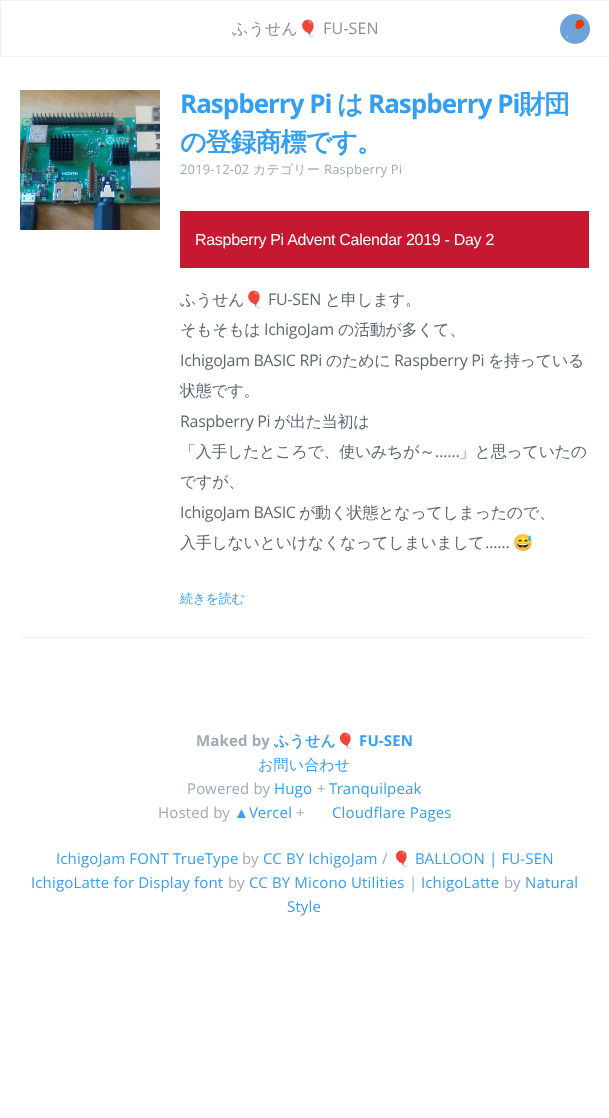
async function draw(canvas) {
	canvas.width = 609;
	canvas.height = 1118;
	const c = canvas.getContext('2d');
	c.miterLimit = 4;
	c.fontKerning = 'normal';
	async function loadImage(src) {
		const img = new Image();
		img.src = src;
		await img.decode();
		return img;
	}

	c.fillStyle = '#fff';
	c.fillRect(0, 0, 609, 1118);
	c.strokeStyle = '#eef2f8';
	c.strokeRect(0.5, 0.5, 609, 56);
	c.letterSpacing = '0.15px';
	c.font = '500 16px WenQuanYi Zen Hei';
	c.fillStyle = '#88909a';
	c.fillText('ふうせん', 232, 34);
	c.font = '16px Noto Color Emoji';
	c.fillText('🎈', 298, 34);
	c.font = '16px Open Sans';
	c.fillText('FU-SEN', 323, 34);
	c.drawImage(await loadImage('img1.png'), 560, 14, 30, 30);
	c.fillStyle = '#eef2f8';
	c.fillRect(20, 637, 569, 1);
	c.drawImage(await loadImage('img2.png'), 20, 90, 140, 140);
	c.letterSpacing = '-1px';
	c.font = 'bold 26px Open Sans';
	c.fillStyle = '#349ef3';
	c.fillText('Raspberry Pi', 180, 113);
	c.font = 'bold 26px WenQuanYi Zen Hei';
	c.fillText('は', 337, 113);
	c.font = 'bold 26px Open Sans';
	c.fillText('Raspberry Pi', 368, 113);
	c.font = 'bold 26px WenQuanYi Zen Hei';
	c.fillText('財団', 519, 113);
	c.fillText('の登録商標です。', 180, 151);
	c.letterSpacing = '0.15px';
	c.font = '13px Open Sans';
	c.fillStyle = '#9eabb3';
	c.fillText('2019-12-02', 180, 174);
	c.font = '500 13px WenQuanYi Zen Hei';
	c.fillText('カテゴリー', 253, 174);
	c.font = '13px Open Sans';
	c.fillText('Raspberry Pi', 324, 174);
	c.fillStyle = '#c61931';
	c.fillRect(180, 211, 409, 57);
	c.letterSpacing = '-0.3px';
	c.font = '16px Liberation Sans';
	c.fillStyle = '#fff';
	c.fillText('Raspberry Pi Advent Calendar 2019 - Day 2', 195, 245);
	c.font = '500 16px WenQuanYi Zen Hei';
	c.fillStyle = '#5d686f';
	c.fillText('ふうせん', 180, 305);
	c.font = '16px Noto Color Emoji';
	c.fillText('🎈', 244, 305);
	c.font = '16px Open Sans';
	c.fillText('FU-SEN', 268, 305);
	c.font = '500 16px WenQuanYi Zen Hei';
	c.fillText('と申します。', 325, 305);
	c.fillText('そもそもは', 180, 335);
	c.font = '16px Open Sans';
	c.fillText('IchigoJam', 264, 335);
	c.font = '500 16px WenQuanYi Zen Hei';
	c.fillText('の活動が多くて、', 338, 335);
	c.font = '16px Open Sans';
	c.fillText('IchigoJam BASIC RPi', 180, 366);
	c.font = '500 16px WenQuanYi Zen Hei';
	c.fillText('のために', 326, 366);
	c.font = '16px Open Sans';
	c.fillText('Raspberry Pi', 394, 366);
	c.font = '500 16px WenQuanYi Zen Hei';
	c.fillText('を持っている', 488, 366);
	c.fillText('状態です。', 180, 396);
	c.font = '16px Open Sans';
	c.fillText('Raspberry Pi', 180, 427);
	c.font = '500 16px WenQuanYi Zen Hei';
	c.fillText('が出た当初は', 274, 427);
	c.fillText('「入手したところで、使いみちが～', 180, 457);
	c.font = '16px Open Sans';
	c.fillText('……', 435, 457);
	c.font = '500 16px WenQuanYi Zen Hei';
	c.fillText('」と思っていたの', 459, 457);
	c.fillText('ですが、', 180, 487);
	c.font = '16px Open Sans';
	c.fillText('IchigoJam BASIC', 180, 518);
	c.font = '500 16px WenQuanYi Zen Hei';
	c.fillText('が動く状態となってしまったので、', 299, 518);
	c.fillText('入手しないといけなくなってしまいまして', 180, 548);
	c.font = '16px Open Sans';
	c.fillText('……', 485, 548);
	c.font = '16px Noto Color Emoji';
	c.fillText('😅', 513, 548);
	c.font = '500 13px WenQuanYi Zen Hei';
	c.fillStyle = '#349ef3';
	c.fillText('続きを読む', 180, 603);
	c.letterSpacing = '0.15px';
	c.font = 'bold 15px Open Sans';
	c.fillStyle = '#9eabb3';
	c.fillText('Maked by', 196, 746);
	c.font = 'bold 15px WenQuanYi Zen Hei';
	c.fillStyle = '#349ef3';
	c.fillText('ふうせん', 274, 746);
	c.font = 'bold 15px Noto Color Emoji';
	c.fillText('🎈', 336, 746);
	c.font = 'bold 15px Open Sans';
	c.fillText('FU-SEN', 359, 746);
	c.font = '500 15px WenQuanYi Zen Hei';
	c.fillText('お問い合わせ', 258, 770);
	c.font = '15px Open Sans';
	c.fillStyle = '#9eabb3';
	c.fillText('Powered by', 187, 794);
	c.fillStyle = '#349ef3';
	c.fillText('Hugo', 274, 794);
	c.fillStyle = '#9eabb3';
	c.fillText('+', 317, 794);
	c.fillStyle = '#349ef3';
	c.fillText('Tranquilpeak', 329, 794);
	c.fillStyle = '#9eabb3';
	c.fillText('Hosted by', 158, 818);
	c.font = '15px Liberation Sans';
	c.fillStyle = '#349ef3';
	c.fillText('▲', 234, 818);
	c.font = '15px Open Sans';
	c.fillText('Vercel', 249, 818);
	c.fillStyle = '#9eabb3';
	c.fillText('+', 296, 818);
	c.fillStyle = '#349ef3';
	c.fillText('Cloudflare Pages', 332, 818);
	c.fillText('IchigoJam FONT TrueType', 56, 864);
	c.fillStyle = '#9eabb3';
	c.fillText('by', 242, 864);
	c.fillStyle = '#349ef3';
	c.fillText('CC BY IchigoJam', 263, 864);
	c.fillStyle = '#9eabb3';
	c.fillText('/', 382, 864);
	c.font = '15px Noto Color Emoji';
	c.fillStyle = '#349ef3';
	c.fillText('🎈', 392, 864);
	c.font = '15px Open Sans';
	c.fillText('BALLOON | FU-SEN', 415, 864);
	c.fillText('IchigoLatte for Display font', 31, 888);
	c.fillStyle = '#9eabb3';
	c.fillText('by', 228, 888);
	c.fillStyle = '#349ef3';
	c.fillText('CC BY Micono Utilities', 249, 888);
	c.fillStyle = '#9eabb3';
	c.fillText('|', 409, 888);
	c.fillStyle = '#349ef3';
	c.fillText('IchigoLatte', 421, 888);
	c.fillStyle = '#9eabb3';
	c.fillText('by', 504, 888);
	c.fillStyle = '#349ef3';
	c.fillText('Natural', 525, 888);
	c.fillText('Style', 287, 912);
}

draw(document.querySelector('canvas'));
